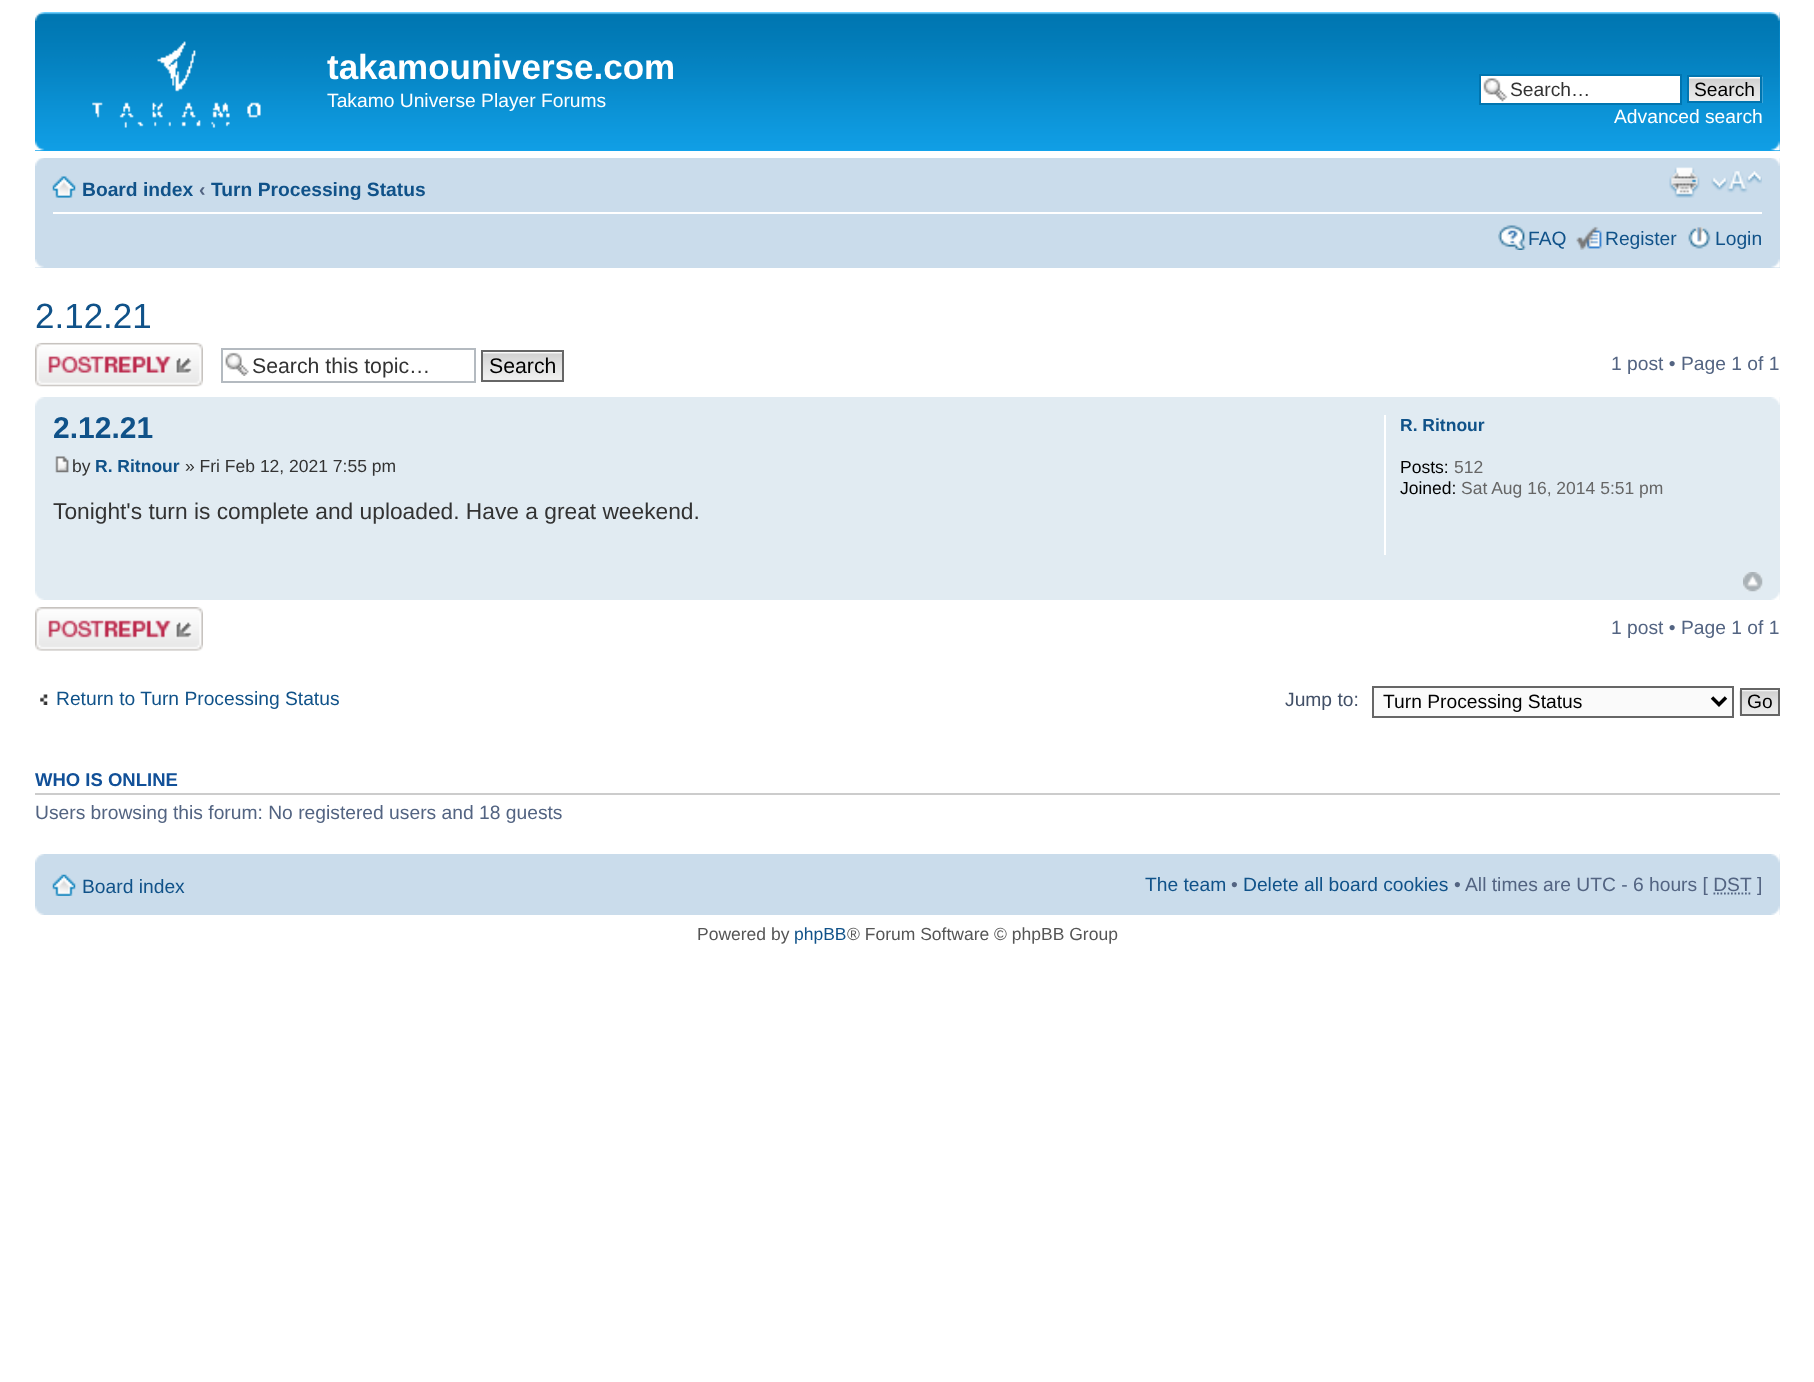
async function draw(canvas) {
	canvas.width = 1814;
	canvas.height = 1382;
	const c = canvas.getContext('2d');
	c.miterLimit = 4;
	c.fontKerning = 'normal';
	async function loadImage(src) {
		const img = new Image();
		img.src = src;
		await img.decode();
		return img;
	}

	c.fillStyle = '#fff';
	c.fillRect(0, 0, 1814, 1382);
	c.fillStyle = '#12a3eb';
	c.fillRect(35, 12, 1745, 139);
	c.drawImage(await loadImage('img1.png'), 35, 12, 1745, 138);
	c.drawImage(await loadImage('img2.png'), 35, 12, 10, 9);
	c.drawImage(await loadImage('img3.png'), 1770, 12, 10, 9);
	c.drawImage(await loadImage('img4.png'), 92, 41, 169, 87);
	c.font = 'bold 35px Liberation Sans';
	c.fillStyle = '#fff';
	c.fillText('takamouniverse.com', 327, 79);
	c.font = '19.25px Liberation Sans';
	c.fillText('Takamo Universe Player Forums', 327, 107);
	c.fillRect(1481, 76, 199, 27);
	c.drawImage(await loadImage('img5.png'), 1483, 78, 25, 24);
	c.strokeStyle = '#0075b0';
	c.lineWidth = 2;
	c.strokeRect(1480, 75, 201, 29);
	c.fillStyle = '#333';
	c.fillText('Search…', 1510, 96);
	c.drawImage(await loadImage('img6.png'), 1689, 76, 74, 27);
	c.strokeRect(1688, 76, 73, 26);
	c.fillStyle = '#000';
	c.fillText('Search', 1694, 96);
	c.fillStyle = '#fff';
	c.fillText('Advanced search', 1614, 123);
	c.drawImage(await loadImage('img7.png'), 35, 141, 10, 10);
	c.drawImage(await loadImage('img8.png'), 1770, 141, 10, 10);
	c.fillStyle = '#cadceb';
	c.fillRect(35, 158, 1745, 110);
	c.drawImage(await loadImage('img9.png'), 35, 158, 9, 8);
	c.drawImage(await loadImage('img10.png'), 1771, 158, 9, 8);
	c.fillStyle = '#fff';
	c.fillRect(53, 212, 1709, 2);
	c.drawImage(await loadImage('img11.png'), 52, 176, 24, 22);
	c.font = 'bold 19.25px Liberation Sans';
	c.fillStyle = '#105289';
	c.fillText('Board index', 82, 196);
	c.fillStyle = '#536482';
	c.fillText('‹', 199, 196);
	c.fillStyle = '#105289';
	c.fillText('Turn Processing Status', 211, 196);
	c.drawImage(await loadImage('img12.png'), 1669, 167, 31, 31);
	c.drawImage(await loadImage('img13.png'), 1711, 171, 51, 22);
	c.drawImage(await loadImage('img14.png'), 1498, 225, 28, 25);
	c.font = '19.25px Liberation Sans';
	c.fillText('FAQ', 1528, 245);
	c.drawImage(await loadImage('img15.png'), 1576, 226, 26, 24);
	c.fillText('Register', 1605, 245);
	c.drawImage(await loadImage('img16.png'), 1688, 227, 23, 22);
	c.fillText('Login', 1715, 245);
	c.drawImage(await loadImage('img17.png'), 35, 259, 9, 9);
	c.drawImage(await loadImage('img18.png'), 1771, 259, 9, 9);
	c.font = '35px Liberation Sans';
	c.fillText('2.12.21', 35, 328);
	c.drawImage(await loadImage('img19.png'), 35, 342, 168, 45);
	c.drawImage(await loadImage('img20.png'), 225, 352, 24, 24);
	c.strokeStyle = '#b4bac0';
	c.strokeRect(222, 349, 253, 33);
	c.font = '21.25px Liberation Sans';
	c.fillStyle = '#333';
	c.fillText('Search this topic…', 252, 373);
	c.fillStyle = '#fafafa';
	c.fillRect(483, 352, 79, 1);
	c.drawImage(await loadImage('img21.png'), 483, 353, 79, 27);
	c.strokeStyle = '#666';
	c.strokeRect(482, 351, 81, 30);
	c.fillStyle = '#000';
	c.fillText('Search', 489, 373);
	c.font = '19.25px Liberation Sans';
	c.fillStyle = '#536482';
	c.fillText('1 post • Page 1 of 1', 1611, 370);
	c.fillStyle = '#e1ebf2';
	c.fillRect(35, 397, 1745, 203);
	c.drawImage(await loadImage('img22.png'), 35, 397, 9, 9);
	c.drawImage(await loadImage('img23.png'), 1771, 397, 9, 8);
	c.font = 'bold 30px Liberation Sans';
	c.fillStyle = '#105289';
	c.fillText('2.12.21', 53, 438);
	c.drawImage(await loadImage('img24.png'), 55, 456, 14, 17);
	c.font = '17.5px Liberation Sans';
	c.fillStyle = '#333';
	c.fillText('by', 72, 472);
	c.font = 'bold 17.5px Liberation Sans';
	c.fillStyle = '#105289';
	c.fillText('R. Ritnour', 95, 472);
	c.font = '17.5px Liberation Sans';
	c.fillStyle = '#333';
	c.fillText('» Fri Feb 12, 2021 7:55 pm', 185, 472);
	c.font = '22.75px Liberation Sans';
	c.fillText('Tonight\'s turn is complete and uploaded. Have a great weekend.', 53, 519);
	c.fillStyle = '#fff';
	c.fillRect(1384, 415, 2, 140);
	c.font = 'bold 17.5px Liberation Sans';
	c.fillStyle = '#105289';
	c.fillText('R. Ritnour', 1400, 431);
	c.font = '17.5px Liberation Sans';
	c.fillStyle = '#000';
	c.fillText('Posts:', 1400, 473);
	c.fillStyle = '#666';
	c.fillText('512', 1454, 473);
	c.fillStyle = '#000';
	c.fillText('Joined:', 1400, 494);
	c.fillStyle = '#666';
	c.fillText('Sat Aug 16, 2014 5:51 pm', 1461, 494);
	c.drawImage(await loadImage('img25.png'), 1743, 572, 20, 20);
	c.drawImage(await loadImage('img26.png'), 35, 591, 9, 9);
	c.drawImage(await loadImage('img27.png'), 1771, 592, 9, 8);
	c.drawImage(await loadImage('img28.png'), 35, 607, 168, 44);
	c.font = '19.25px Liberation Sans';
	c.fillStyle = '#536482';
	c.fillText('1 post • Page 1 of 1', 1611, 634);
	c.drawImage(await loadImage('img29.png'), 40, 694, 8, 11);
	c.fillStyle = '#105289';
	c.fillText('Return to Turn Processing Status', 56, 705);
	c.fillStyle = '#425067';
	c.fillText('Jump to:', 1285, 706);
	c.fillStyle = '#fafafa';
	c.beginPath();
	c.rect(1373, 687, 360, 30);
	c.fill();
	c.stroke();
	c.beginPath();
	c.moveTo(1712, 697.5);
	c.lineTo(1719, 704.5);
	c.lineTo(1726, 697.5);
	c.strokeStyle = '#000';
	c.lineWidth = 3.5;
	c.stroke();
	c.fillStyle = '#000';
	c.fillText('Turn Processing Status', 1383, 708);
	c.drawImage(await loadImage('img30.png'), 1739, 690, 39, 26);
	c.strokeStyle = '#666';
	c.lineWidth = 2;
	c.strokeRect(1741, 689, 38, 26);
	c.fillText('Go', 1747, 708);
	c.fillStyle = '#ccc';
	c.fillRect(35, 793, 1745, 2);
	c.font = 'bold 18.5px Liberation Sans';
	c.fillStyle = '#115098';
	c.fillText('WHO IS ONLINE', 35, 786);
	c.font = '19.25px Liberation Sans';
	c.fillStyle = '#536482';
	c.fillText('Users browsing this forum: No registered users and 18 guests', 35, 819);
	c.fillStyle = '#cadceb';
	c.fillRect(35, 854, 1745, 61);
	c.drawImage(await loadImage('img31.png'), 35, 854, 9, 9);
	c.drawImage(await loadImage('img32.png'), 1771, 854, 9, 9);
	c.drawImage(await loadImage('img33.png'), 52, 874, 24, 22);
	c.fillStyle = '#105289';
	c.fillText('Board index', 82, 893);
	c.fillText('The team', 1145, 891);
	c.fillStyle = '#536482';
	c.fillText('•', 1231, 891);
	c.fillStyle = '#105289';
	c.fillText('Delete all board cookies', 1243, 891);
	c.fillStyle = '#536482';
	c.fillText('• All times are UTC - 6 hours [ DST', 1454, 891);
	c.fillText(']', 1757, 891);
	c.beginPath();
	c.moveTo(1713.5, 893.5);
	c.lineTo(1751.5, 893.5);
	c.strokeStyle = '#536482';
	c.lineWidth = 1.8;
	c.setLineDash([1.75, 1.75]);
	c.stroke();
	c.drawImage(await loadImage('img34.png'), 35, 906, 9, 9);
	c.drawImage(await loadImage('img35.png'), 1771, 906, 9, 9);
	c.font = '17.5px Liberation Sans';
	c.fillStyle = '#555';
	c.fillText('Powered by', 697, 940);
	c.fillStyle = '#105289';
	c.fillText('phpBB', 794, 940);
	c.fillStyle = '#555';
	c.fillText('® Forum Software © phpBB Group', 847, 940);
}

draw(document.querySelector('canvas'));
